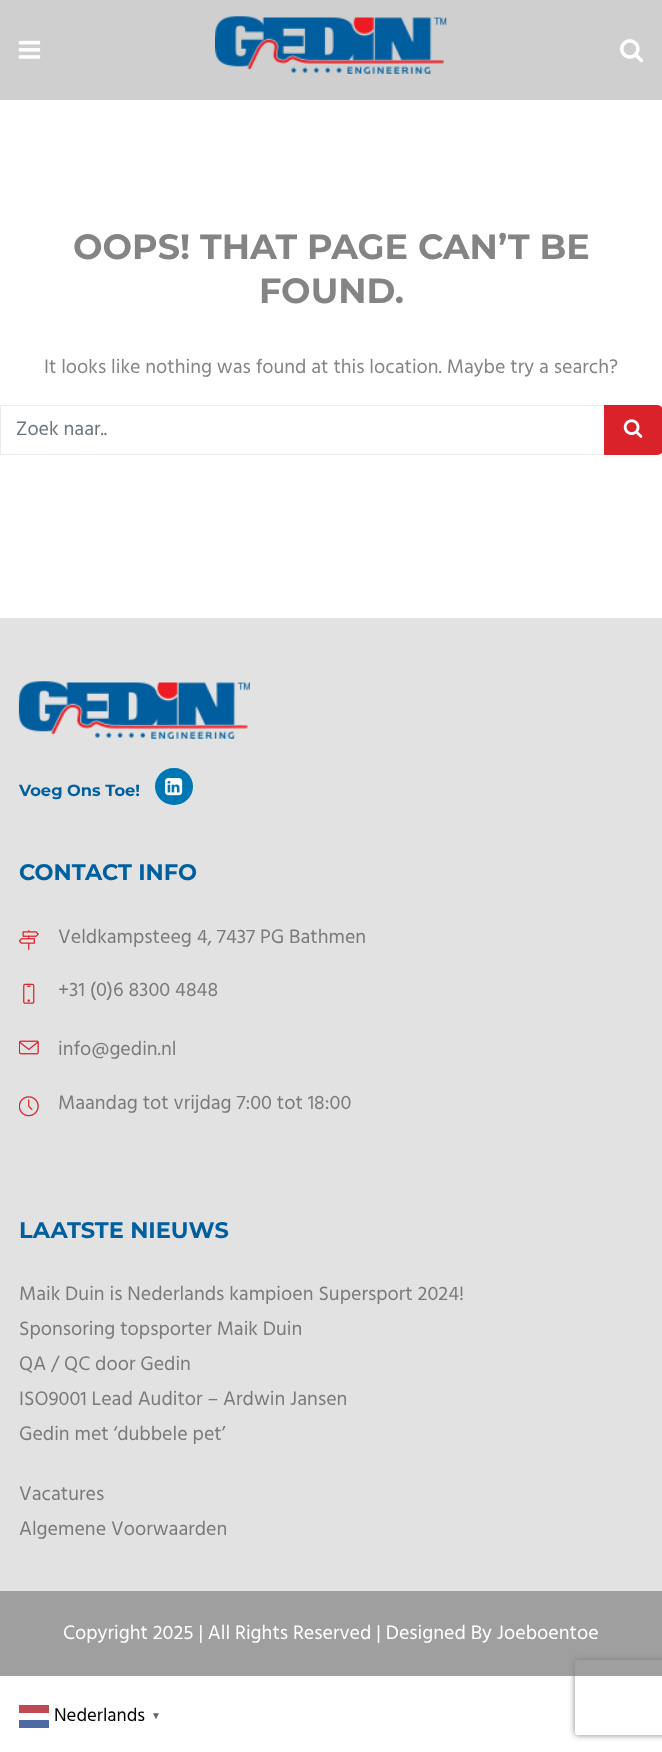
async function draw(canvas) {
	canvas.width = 662;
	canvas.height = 1752;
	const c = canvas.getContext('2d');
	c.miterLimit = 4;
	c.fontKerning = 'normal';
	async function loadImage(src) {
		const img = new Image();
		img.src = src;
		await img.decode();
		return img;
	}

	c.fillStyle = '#fff';
	c.fillRect(0, 0, 662, 1752);
	c.fillStyle = '#cfcfcf';
	c.fillRect(0, 0, 662, 100);
	c.drawImage(await loadImage('img1.png'), 18, 40, 23, 19);
	c.drawImage(await loadImage('img2.png'), 215, 16, 232, 58);
	c.drawImage(await loadImage('img3.png'), 620, 39, 24, 24);
	c.font = '100 35px Montserrat';
	c.fillStyle = '#848484';
	c.fillText('OOPS! THAT PAGE CAN’T BE', 73, 259);
	c.fillText('FOUND.', 259, 303);
	c.font = '20px Hind';
	c.fillText('It looks like nothing was found at this location. Maybe try a search?', 44, 373);
	for (const [x, y, w, h, color] of [
		[0, 405, 604, 1, '#eaeaea'],
		[0, 454, 604, 1, '#eaeaea'],
		[0, 405, 1, 50, '#eaeaea'],
	]) {
		c.fillStyle = color;
		c.fillRect(x, y, w, h);
	}
	c.fillStyle = '#6c757d';
	c.fillText('Zoek naar..', 16, 435);
	c.fillStyle = '#d92229';
	c.beginPath();
	c.moveTo(604, 405);
	c.lineTo(657, 405);
	c.bezierCurveTo(660.5, 405, 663, 407.5, 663, 411);
	c.lineTo(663, 449);
	c.bezierCurveTo(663, 452.5, 660.5, 455, 657, 455);
	c.lineTo(604, 455);
	c.closePath();
	c.fill();
	c.drawImage(await loadImage('img4.png'), 623, 419, 20, 19);
	c.fillStyle = '#e2e2e2';
	c.fillRect(0, 618, 662, 973);
	c.drawImage(await loadImage('img5.png'), 18, 681, 232, 58);
	c.font = '100 16.25px Montserrat';
	c.fillStyle = '#005f9e';
	c.fillText('Voeg Ons Toe!', 19, 796);
	c.fillStyle = '#0077b5';
	c.beginPath();
	c.roundRect(155, 768, 38, 37, 18.5);
	c.fill();
	c.drawImage(await loadImage('img6.png'), 165, 778, 18, 18);
	c.font = '100 22.5px Montserrat';
	c.fillStyle = '#005f9e';
	c.fillText('CONTACT INFO', 19, 880);
	c.drawImage(await loadImage('img7.png'), 19, 930, 20, 20);
	c.font = '20px Hind';
	c.fillStyle = '#7a7a7a';
	c.fillText('Veldkampsteeg 4, 7437 PG Bathmen', 58, 943);
	c.drawImage(await loadImage('img8.png'), 23, 983, 12, 21);
	c.fillText('+31 (0)6 8300 4848', 58, 996);
	c.drawImage(await loadImage('img9.png'), 19, 1040, 20, 15);
	c.fillText('info@gedin.nl', 58, 1055);
	c.drawImage(await loadImage('img10.png'), 19, 1096, 20, 21);
	c.fillText('Maandag tot vrijdag 7:00 tot 18:00', 58, 1109);
	c.font = '100 22.5px Montserrat';
	c.fillStyle = '#005f9e';
	c.fillText('LAATSTE NIEUWS', 19, 1238);
	c.font = '20px Hind';
	c.fillStyle = '#7a7a7a';
	for (const [text, x, y] of [
		['Maik Duin is Nederlands kampioen Supersport 2024!', 19, 1300],
		['Sponsoring topsporter Maik Duin', 19, 1335],
		['QA / QC door Gedin', 19, 1370],
		['ISO9001 Lead Auditor – Ardwin Jansen', 19, 1405],
		['Gedin met ‘dubbele pet’', 19, 1440],
		['Vacatures', 19, 1500],
		['Algemene Voorwaarden', 19, 1535],
	]) {
		c.fillText(text, x, y);
	}
	c.fillStyle = '#9f9f9f';
	c.fillRect(0, 1591, 662, 85);
	c.fillStyle = '#fff';
	c.fillText('Copyright 2025 | All Rights Reserved | Designed By Joeboentoe', 63, 1639);
	c.font = '18.75px Hind';
	c.fillStyle = '#000';
	c.fillText('Nederlands', 54, 1721);
	c.fillStyle = '#4d6ba2';
	c.fillRect(19, 1720, 30, 8);
	c.fillStyle = '#be4953';
	c.fillRect(19, 1705, 30, 8);
	c.font = 'bold 10px Liberation Serif';
	c.fillStyle = '#666';
	c.fillText('▼', 151, 1719);
	c.save();
	c.beginPath();
	c.moveTo(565, 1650);
	c.lineTo(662, 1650);
	c.lineTo(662, 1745);
	c.lineTo(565, 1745);
	c.closePath();
	c.moveTo(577.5, 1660);
	c.lineTo(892.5, 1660);
	c.bezierCurveTo(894, 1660, 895, 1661, 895, 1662.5);
	c.lineTo(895, 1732.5);
	c.bezierCurveTo(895, 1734, 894, 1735, 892.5, 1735);
	c.lineTo(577.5, 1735);
	c.bezierCurveTo(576, 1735, 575, 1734, 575, 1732.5);
	c.lineTo(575, 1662.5);
	c.bezierCurveTo(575, 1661, 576, 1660, 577.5, 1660);
	c.closePath();
	c.clip('evenodd');
	c.fillStyle = '#808080';
	c.filter = 'blur(3px)';
	c.beginPath();
	c.roundRect(575, 1660, 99, 75, 2.5);
	c.fill();
	c.filter = 'none';
	c.restore();
}

draw(document.querySelector('canvas'));
